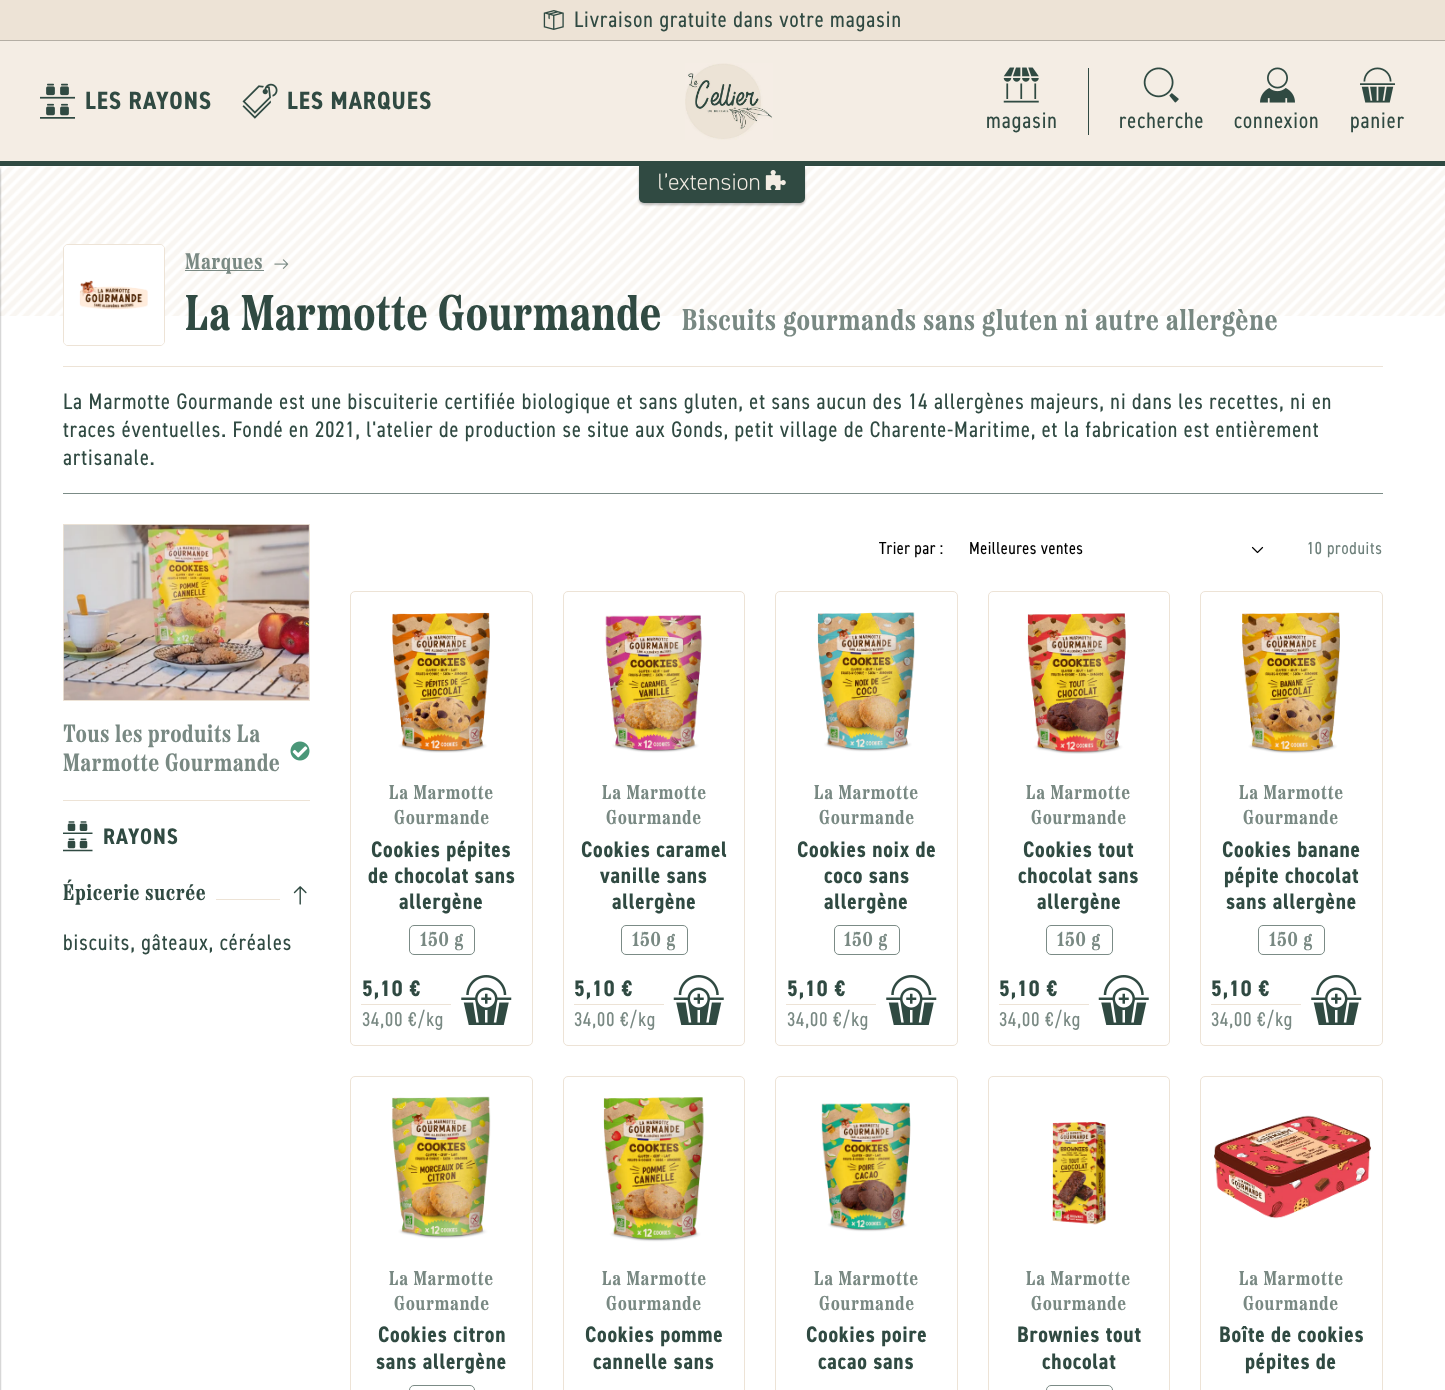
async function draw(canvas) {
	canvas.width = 1445;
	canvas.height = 1390;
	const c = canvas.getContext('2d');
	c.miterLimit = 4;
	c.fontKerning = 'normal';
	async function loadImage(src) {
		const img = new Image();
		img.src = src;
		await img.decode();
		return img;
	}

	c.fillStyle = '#fff';
	c.fillRect(0, 0, 1445, 1390);
	c.fillStyle = '#ede3d6';
	c.fillRect(0, 0, 1445, 40);
	c.fillStyle = '#b4aea4';
	c.fillRect(0, 40, 1445, 1);
	c.drawImage(await loadImage('img1.png'), 543, 10, 21, 20);
	c.letterSpacing = '1px';
	c.font = '22.5px "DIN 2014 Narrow"';
	c.fillStyle = '#304a42';
	c.fillText('Livraison gratuite dans votre magasin', 574, 27);
	c.fillStyle = '#f4ede4';
	c.fillRect(0, 41, 1445, 120);
	c.drawImage(await loadImage('img10.png'), 0, 166, 1445, 150);
	c.fillStyle = '#3c3c3b52';
	c.filter = 'blur(1px)';
	c.beginPath();
	c.roundRect(639, 166, 166, 39, 5);
	c.fill();
	c.filter = 'none';
	c.fillStyle = '#304a42';
	c.beginPath();
	c.roundRect(639, 164, 166, 39, [0, 0, 5, 5]);
	c.fill();
	c.fillRect(0, 161, 1445, 5);
	c.drawImage(await loadImage('img2.png'), 40, 83, 35, 36);
	c.font = 'bold 25px "DIN 2014 Narrow"';
	c.fillText('LES RAYONS', 85, 109);
	c.fillStyle = '#3c3c3b52';
	c.filter = 'blur(1px)';
	c.beginPath();
	c.rect(-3, 169, 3, 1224);
	c.fill();
	c.filter = 'none';
	c.drawImage(await loadImage('img3.png'), 242, 83, 36, 36);
	c.fillStyle = '#304a42';
	c.fillText('LES MARQUES', 287, 109);
	c.fillStyle = '#3c3c3b52';
	c.filter = 'blur(1px)';
	c.beginPath();
	c.rect(-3, 169, 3, 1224);
	c.fill();
	c.filter = 'none';
	c.drawImage(await loadImage('img4.png'), 685, 63, 88, 77);
	c.fillStyle = '#304a42';
	c.fillRect(1088, 68, 1, 67);
	c.drawImage(await loadImage('img5.png'), 1003, 67, 36, 36);
	c.font = '22.5px "DIN 2014 Narrow"';
	c.fillText('magasin', 986, 128);
	c.drawImage(await loadImage('img6.png'), 1143, 67, 36, 36);
	c.fillText('recherche', 1119, 128);
	c.drawImage(await loadImage('img7.png'), 1260, 67, 35, 36);
	c.fillText('connexion', 1234, 128);
	c.drawImage(await loadImage('img8.png'), 1360, 67, 35, 36);
	c.fillText('panier', 1350, 128);
	c.drawImage(await loadImage('img9.png'), 659, 170, 127, 20);
	c.beginPath();
	c.roundRect(63.5, 244.5, 101, 101, 4.5);
	c.strokeStyle = '#ede3d6';
	c.stroke();
	c.fillStyle = '#fff';
	c.beginPath();
	c.roundRect(64, 245, 100, 100, 4);
	c.fill();
	c.drawImage(await loadImage('img11.png'), 79, 280, 69, 30);
	c.fillStyle = '#304a42a3';
	c.fillRect(185, 270, 79, 1);
	c.font = 'bold 22.5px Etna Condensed';
	c.fillStyle = '#798983';
	c.fillText('Marques', 185, 269);
	c.drawImage(await loadImage('img12.png'), 274, 259, 15, 10);
	c.letterSpacing = '0.75px';
	c.font = 'bold 50px Etna Condensed';
	c.fillStyle = '#304a42';
	c.fillText('La Marmotte Gourmande', 185, 330);
	c.letterSpacing = '1px';
	c.font = 'bold 30px Etna Condensed';
	c.fillStyle = '#798983';
	c.fillText('Biscuits gourmands sans gluten ni autre allergène', 682, 330);
	c.fillStyle = '#7b8b86';
	c.fillRect(63, 493, 1320, 1);
	c.fillStyle = '#ede3d6';
	c.fillRect(63, 366, 1320, 1);
	c.font = '22.5px "DIN 2014 Narrow"';
	c.fillStyle = '#304a42';
	for (const [text, x, y] of [
		['La Marmotte Gourmande est une biscuiterie certifiée biologique et sans gluten, et sans aucun des 14 allergènes majeurs, ni dans les recettes, ni en', 63, 409],
		['traces éventuelles. Fondé en 2021, l\'atelier de production se situe aux Gonds, petit village de Charente-Maritime, et la fabrication est entièrement', 63, 437],
		['artisanale.', 63, 465],
	]) {
		c.fillText(text, x, y);
	}
	c.strokeRect(63.5, 524.5, 246, 176);
	c.drawImage(await loadImage('img13.png'), 63, 524, 246, 176);
	c.fillStyle = '#ede3d6';
	c.fillRect(63, 800, 247, 1);
	c.letterSpacing = '0.75px';
	c.font = 'bold 25px Etna Condensed';
	c.fillStyle = '#798983';
	c.fillText('Tous les produits La', 63, 742);
	c.fillText('Marmotte Gourmande', 63, 771);
	c.drawImage(await loadImage('img14.png'), 290, 741, 20, 20);
	c.drawImage(await loadImage('img15.png'), 63, 821, 30, 31);
	c.letterSpacing = '1px';
	c.font = 'bold 22.5px "DIN 2014 Narrow"';
	c.fillStyle = '#304a42';
	c.fillText('RAYONS', 103, 844);
	c.font = 'bold 22.5px Etna Condensed';
	c.fillText('Épicerie sucrée', 63, 900);
	c.fillStyle = '#ede3d6';
	c.fillRect(216, 899, 64, 1);
	c.drawImage(await loadImage('img16.png'), 293, 886, 14, 19);
	c.font = '22.5px "DIN 2014 Narrow"';
	c.fillStyle = '#304a42';
	c.fillText('biscuits, gâteaux, céréales', 63, 950);
	c.letterSpacing = '0.5px';
	c.font = '17.5px "DIN 2014 Narrow"';
	c.fillStyle = '#000';
	c.fillText('Trier par :', 879, 554);
	c.fillText('Meilleures ventes', 969, 554);
	c.drawImage(await loadImage('img17.png'), 1251, 546, 13, 8);
	c.letterSpacing = '0.75px';
	c.fillStyle = '#6e807b';
	c.fillText('10 produits', 1307, 554);
	c.beginPath();
	c.roundRect(350.5, 591.5, 182, 454, 4.5);
	c.stroke();
	c.drawImage(await loadImage('img18.png'), 392, 612, 98, 141);
	c.letterSpacing = '1px';
	c.font = 'bold 20px Etna Condensed';
	c.fillStyle = '#798983';
	c.fillText('La Marmotte', 389, 799);
	c.fillText('Gourmande', 394, 824);
	c.letterSpacing = '0.75px';
	c.font = 'bold 22.5px "DIN 2014 Narrow"';
	c.fillStyle = '#304a42';
	for (const [text, x, y] of [
		['Cookies pépites', 371, 857],
		['de chocolat sans', 368, 883],
		['allergène', 399, 909],
	]) {
		c.fillText(text, x, y);
	}
	c.beginPath();
	c.roundRect(409.5, 925.5, 65, 29, 4.5);
	c.strokeStyle = '#7b8b86';
	c.stroke();
	c.letterSpacing = '1px';
	c.font = 'bold 20px Etna Condensed';
	c.fillStyle = '#798983';
	c.fillText('150 g', 420, 946);
	c.fillStyle = '#ede3d6';
	c.fillRect(361, 1004, 90, 1);
	c.font = 'bold 22.5px "DIN 2014 Narrow"';
	c.fillStyle = '#304a42';
	c.fillText('5,10 €', 362, 996);
	c.font = '20px "DIN 2014 Narrow"';
	c.fillStyle = '#798983';
	c.fillText('34,00 €/kg', 362, 1026);
	c.drawImage(await loadImage('img19.png'), 461, 975, 51, 50);
	c.beginPath();
	c.roundRect(563.5, 591.5, 181, 454, 4.5);
	c.strokeStyle = '#ede3d6';
	c.stroke();
	c.drawImage(await loadImage('img20.png'), 605, 614, 97, 139);
	c.font = 'bold 20px Etna Condensed';
	c.fillText('La Marmotte', 602, 799);
	c.fillText('Gourmande', 606, 824);
	c.letterSpacing = '0.75px';
	c.font = 'bold 22.5px "DIN 2014 Narrow"';
	c.fillStyle = '#304a42';
	for (const [text, x, y] of [
		['Cookies caramel', 581, 857],
		['vanille sans', 600, 883],
		['allergène', 612, 909],
	]) {
		c.fillText(text, x, y);
	}
	c.beginPath();
	c.roundRect(621.5, 925.5, 66, 29, 4.5);
	c.strokeStyle = '#7b8b86';
	c.stroke();
	c.letterSpacing = '1px';
	c.font = 'bold 20px Etna Condensed';
	c.fillStyle = '#798983';
	c.fillText('150 g', 632, 946);
	c.fillStyle = '#ede3d6';
	c.fillRect(574, 1004, 90, 1);
	c.font = 'bold 22.5px "DIN 2014 Narrow"';
	c.fillStyle = '#304a42';
	c.fillText('5,10 €', 574, 996);
	c.font = '20px "DIN 2014 Narrow"';
	c.fillStyle = '#798983';
	c.fillText('34,00 €/kg', 574, 1026);
	c.drawImage(await loadImage('img21.png'), 673, 975, 51, 50);
	c.beginPath();
	c.roundRect(775.5, 591.5, 182, 454, 4.5);
	c.strokeStyle = '#ede3d6';
	c.stroke();
	c.drawImage(await loadImage('img22.png'), 817, 612, 98, 140);
	c.font = 'bold 20px Etna Condensed';
	c.fillText('La Marmotte', 814, 799);
	c.fillText('Gourmande', 819, 824);
	c.letterSpacing = '0.75px';
	c.font = 'bold 22.5px "DIN 2014 Narrow"';
	c.fillStyle = '#304a42';
	for (const [text, x, y] of [
		['Cookies noix de', 797, 857],
		['coco sans', 824, 883],
		['allergène', 824, 909],
	]) {
		c.fillText(text, x, y);
	}
	c.beginPath();
	c.roundRect(834.5, 925.5, 65, 29, 4.5);
	c.strokeStyle = '#7b8b86';
	c.stroke();
	c.letterSpacing = '1px';
	c.font = 'bold 20px Etna Condensed';
	c.fillStyle = '#798983';
	c.fillText('150 g', 844, 946);
	c.fillStyle = '#ede3d6';
	c.fillRect(786, 1004, 90, 1);
	c.font = 'bold 22.5px "DIN 2014 Narrow"';
	c.fillStyle = '#304a42';
	c.fillText('5,10 €', 787, 996);
	c.font = '20px "DIN 2014 Narrow"';
	c.fillStyle = '#798983';
	c.fillText('34,00 €/kg', 787, 1026);
	c.drawImage(await loadImage('img19.png'), 886, 975, 51, 50);
	c.beginPath();
	c.roundRect(988.5, 591.5, 181, 454, 4.5);
	c.strokeStyle = '#ede3d6';
	c.stroke();
	c.drawImage(await loadImage('img23.png'), 1027, 613, 99, 141);
	c.font = 'bold 20px Etna Condensed';
	c.fillText('La Marmotte', 1026, 799);
	c.fillText('Gourmande', 1031, 824);
	c.letterSpacing = '0.75px';
	c.font = 'bold 22.5px "DIN 2014 Narrow"';
	c.fillStyle = '#304a42';
	for (const [text, x, y] of [
		['Cookies tout', 1023, 857],
		['chocolat sans', 1018, 883],
		['allergène', 1037, 909],
	]) {
		c.fillText(text, x, y);
	}
	c.beginPath();
	c.roundRect(1046.5, 925.5, 66, 29, 4.5);
	c.strokeStyle = '#7b8b86';
	c.stroke();
	c.letterSpacing = '1px';
	c.font = 'bold 20px Etna Condensed';
	c.fillStyle = '#798983';
	c.fillText('150 g', 1057, 946);
	c.fillStyle = '#ede3d6';
	c.fillRect(999, 1004, 90, 1);
	c.font = 'bold 22.5px "DIN 2014 Narrow"';
	c.fillStyle = '#304a42';
	c.fillText('5,10 €', 999, 996);
	c.font = '20px "DIN 2014 Narrow"';
	c.fillStyle = '#798983';
	c.fillText('34,00 €/kg', 999, 1026);
	c.drawImage(await loadImage('img21.png'), 1098, 975, 51, 50);
	c.beginPath();
	c.roundRect(1200.5, 591.5, 182, 454, 4.5);
	c.strokeStyle = '#ede3d6';
	c.stroke();
	c.drawImage(await loadImage('img24.png'), 1242, 612, 98, 142);
	c.font = 'bold 20px Etna Condensed';
	c.fillText('La Marmotte', 1239, 799);
	c.fillText('Gourmande', 1243, 824);
	c.letterSpacing = '0.75px';
	c.font = 'bold 22.5px "DIN 2014 Narrow"';
	c.fillStyle = '#304a42';
	for (const [text, x, y] of [
		['Cookies banane', 1222, 857],
		['pépite chocolat', 1224, 883],
		['sans allergène', 1226, 909],
	]) {
		c.fillText(text, x, y);
	}
	c.beginPath();
	c.roundRect(1258.5, 925.5, 66, 29, 4.5);
	c.strokeStyle = '#7b8b86';
	c.stroke();
	c.letterSpacing = '1px';
	c.font = 'bold 20px Etna Condensed';
	c.fillStyle = '#798983';
	c.fillText('150 g', 1269, 946);
	c.fillStyle = '#ede3d6';
	c.fillRect(1211, 1004, 90, 1);
	c.font = 'bold 22.5px "DIN 2014 Narrow"';
	c.fillStyle = '#304a42';
	c.fillText('5,10 €', 1211, 996);
	c.font = '20px "DIN 2014 Narrow"';
	c.fillStyle = '#798983';
	c.fillText('34,00 €/kg', 1211, 1026);
	c.drawImage(await loadImage('img19.png'), 1311, 975, 51, 50);
	c.beginPath();
	c.roundRect(350.5, 1076.5, 182, 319, 4.5);
	c.strokeStyle = '#ede3d6';
	c.stroke();
	c.drawImage(await loadImage('img25.png'), 391, 1096, 100, 143);
	c.font = 'bold 20px Etna Condensed';
	c.fillText('La Marmotte', 389, 1285);
	c.fillText('Gourmande', 394, 1310);
	c.letterSpacing = '0.75px';
	c.font = 'bold 22.5px "DIN 2014 Narrow"';
	c.fillStyle = '#304a42';
	c.fillText('Cookies citron', 378, 1342);
	c.fillText('sans allergène', 376, 1369);
	c.beginPath();
	c.roundRect(409.5, 1385.5, 65, 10, 4.5);
	c.strokeStyle = '#7b8b86';
	c.stroke();
	c.beginPath();
	c.roundRect(563.5, 1076.5, 181, 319, 4.5);
	c.strokeStyle = '#ede3d6';
	c.stroke();
	c.drawImage(await loadImage('img26.png'), 603, 1097, 101, 145);
	c.letterSpacing = '1px';
	c.font = 'bold 20px Etna Condensed';
	c.fillStyle = '#798983';
	c.fillText('La Marmotte', 602, 1285);
	c.fillText('Gourmande', 606, 1310);
	c.letterSpacing = '0.75px';
	c.font = 'bold 22.5px "DIN 2014 Narrow"';
	c.fillStyle = '#304a42';
	c.fillText('Cookies pomme', 585, 1342);
	c.fillText('cannelle sans', 593, 1369);
	c.beginPath();
	c.roundRect(775.5, 1076.5, 182, 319, 4.5);
	c.stroke();
	c.drawImage(await loadImage('img27.png'), 821, 1102, 90, 130);
	c.letterSpacing = '1px';
	c.font = 'bold 20px Etna Condensed';
	c.fillStyle = '#798983';
	c.fillText('La Marmotte', 814, 1285);
	c.fillText('Gourmande', 819, 1310);
	c.letterSpacing = '0.75px';
	c.font = 'bold 22.5px "DIN 2014 Narrow"';
	c.fillStyle = '#304a42';
	c.fillText('Cookies poire', 806, 1342);
	c.fillText('cacao sans', 818, 1369);
	c.beginPath();
	c.roundRect(988.5, 1076.5, 181, 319, 4.5);
	c.stroke();
	c.drawImage(await loadImage('img28.png'), 1052, 1121, 54, 104);
	c.letterSpacing = '1px';
	c.font = 'bold 20px Etna Condensed';
	c.fillStyle = '#798983';
	c.fillText('La Marmotte', 1026, 1285);
	c.fillText('Gourmande', 1031, 1310);
	c.letterSpacing = '0.75px';
	c.font = 'bold 22.5px "DIN 2014 Narrow"';
	c.fillStyle = '#304a42';
	c.fillText('Brownies tout', 1017, 1342);
	c.fillText('chocolat', 1042, 1369);
	c.beginPath();
	c.roundRect(1046.5, 1385.5, 66, 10, 4.5);
	c.strokeStyle = '#7b8b86';
	c.stroke();
	c.beginPath();
	c.roundRect(1200.5, 1076.5, 182, 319, 4.5);
	c.strokeStyle = '#ede3d6';
	c.stroke();
	c.drawImage(await loadImage('img29.png'), 1214, 1115, 157, 104);
	c.letterSpacing = '1px';
	c.font = 'bold 20px Etna Condensed';
	c.fillStyle = '#798983';
	c.fillText('La Marmotte', 1239, 1285);
	c.fillText('Gourmande', 1243, 1310);
	c.letterSpacing = '0.75px';
	c.font = 'bold 22.5px "DIN 2014 Narrow"';
	c.fillStyle = '#304a42';
	c.fillText('Boîte de cookies', 1219, 1342);
	c.fillText('pépites de', 1245, 1369);
}

draw(document.querySelector('canvas'));
